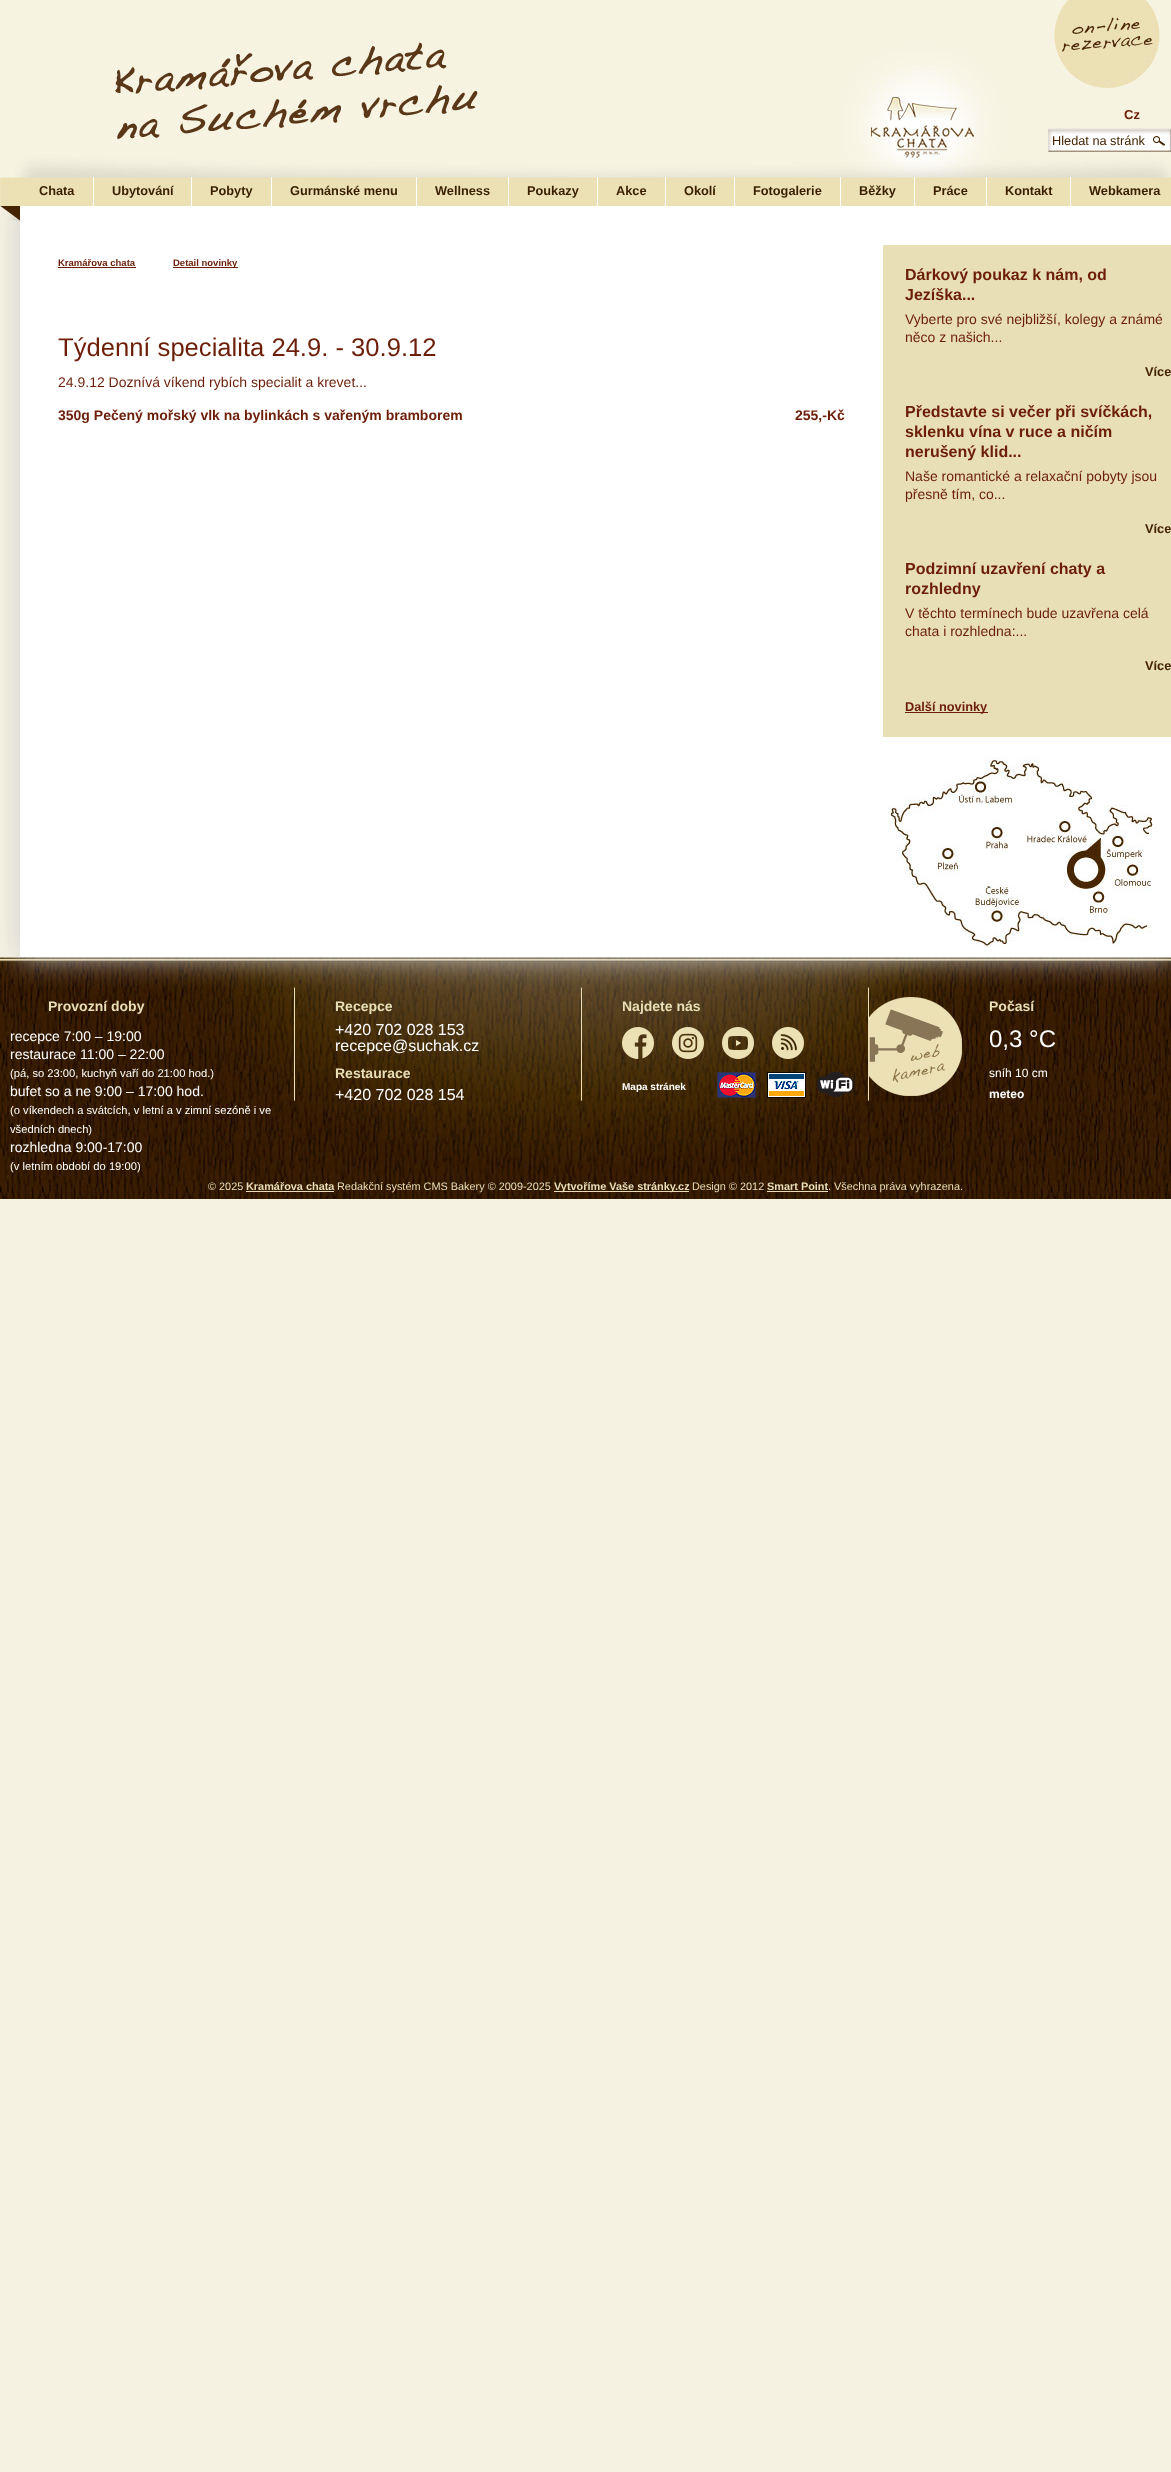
async function draw(canvas) {
	canvas.width = 1171;
	canvas.height = 2472;
	const c = canvas.getContext('2d');
	c.miterLimit = 4;
	c.fontKerning = 'normal';
	async function loadImage(src) {
		const img = new Image();
		img.src = src;
		await img.decode();
		return img;
	}

	c.fillStyle = '#f6f2e2';
	c.fillRect(0, 0, 1171, 2472);
	c.drawImage(await loadImage('img4.png'), 0, 957, 1171, 242);
	c.drawImage(await loadImage('img5.png'), 10, 960, 1152, 239);
	c.fillStyle = '#ccc';
	c.filter = 'blur(15px)';
	c.beginPath();
	c.rect(20, 206, 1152, 751);
	c.fill();
	c.filter = 'none';
	c.drawImage(await loadImage('img1.png'), 0, 0, 1171, 206);
	c.font = 'bold 13px Liberation Sans';
	c.fillStyle = '#6c1e08';
	c.fillText('Cz', 1124, 119);
	c.font = '12.75px Liberation Sans';
	c.fillStyle = '#442300';
	c.fillText('Hledat na stránk', 1052, 145);
	c.fillStyle = '#fff';
	c.fillRect(93, 177, 1, 29);
	c.font = 'bold 12.75px Liberation Sans';
	c.fillStyle = '#391e00';
	c.fillText('Chata', 39, 195);
	c.fillStyle = '#fff';
	c.fillRect(191, 177, 1, 29);
	c.fillStyle = '#391e00';
	c.fillText('Ubytování', 112, 195);
	c.fillStyle = '#fff';
	c.fillRect(271, 177, 1, 29);
	c.fillStyle = '#391e00';
	c.fillText('Pobyty', 210, 195);
	c.fillStyle = '#fff';
	c.fillRect(416, 177, 1, 29);
	c.fillStyle = '#391e00';
	c.fillText('Gurmánské menu', 290, 195);
	c.fillStyle = '#fff';
	c.fillRect(508, 177, 1, 29);
	c.fillStyle = '#391e00';
	c.fillText('Wellness', 435, 195);
	c.fillStyle = '#fff';
	c.fillRect(597, 177, 1, 29);
	c.fillStyle = '#391e00';
	c.fillText('Poukazy', 527, 195);
	c.fillStyle = '#fff';
	c.fillRect(665, 177, 1, 29);
	c.fillStyle = '#391e00';
	c.fillText('Akce', 616, 195);
	c.fillStyle = '#fff';
	c.fillRect(734, 177, 1, 29);
	c.fillStyle = '#391e00';
	c.fillText('Okolí', 684, 195);
	c.fillStyle = '#fff';
	c.fillRect(840, 177, 1, 29);
	c.fillStyle = '#391e00';
	c.fillText('Fotogalerie', 753, 195);
	c.fillStyle = '#fff';
	c.fillRect(914, 177, 1, 29);
	c.fillStyle = '#391e00';
	c.fillText('Běžky', 859, 195);
	c.fillStyle = '#fff';
	c.fillRect(986, 177, 1, 29);
	c.fillStyle = '#391e00';
	c.fillText('Práce', 933, 195);
	c.fillStyle = '#fff';
	c.fillRect(1070, 177, 1, 29);
	c.fillStyle = '#391e00';
	c.fillText('Kontakt', 1005, 195);
	c.fillText('Webkamera', 1089, 195);
	c.drawImage(await loadImage('img2.png'), 0, 206, 20, 15);
	c.fillStyle = '#fff';
	c.fillRect(20, 206, 1151, 751);
	c.font = 'bold 9.5px Liberation Sans';
	c.fillStyle = '#6c1e08';
	c.fillText('Kramářova chata', 58, 266);
	c.fillRect(58, 267, 78, 1);
	c.fillRect(173, 267, 65, 1);
	c.fillText('Detail novinky', 173, 266);
	c.font = '25.6px Liberation Sans';
	c.fillText('Týdenní specialita 24.9. - 30.9.12', 58, 356);
	c.font = '14px Liberation Sans';
	c.fillText('24.9.12 Doznívá víkend rybích specialit a krevet...', 58, 387);
	c.font = 'bold 14px Liberation Sans';
	c.fillText('350g Pečený mořský vlk na bylinkách s vařeným bramborem', 58, 420);
	c.fillText('255,-Kč', 795, 420);
	c.fillStyle = '#e8dfb6';
	c.fillRect(883, 245, 288, 492);
	c.font = 'bold 16px Liberation Sans';
	c.fillStyle = '#6c1e08';
	c.fillText('Dárkový poukaz k nám, od', 905, 280);
	c.fillText('Jezíška...', 905, 300);
	c.font = '14px Liberation Sans';
	c.fillText('Vyberte pro své nejbližší, kolegy a známé', 905, 324);
	c.fillText('něco z našich...', 905, 342);
	c.font = 'bold 12.75px Liberation Sans';
	c.fillStyle = '#442300';
	c.fillText('Více', 1145, 376);
	c.font = 'bold 16px Liberation Sans';
	c.fillStyle = '#6c1e08';
	for (const [text, x, y] of [
		['Představte si večer při svíčkách,', 905, 417],
		['sklenku vína v ruce a ničím', 905, 437],
		['nerušený klid...', 905, 457],
	]) {
		c.fillText(text, x, y);
	}
	c.font = '14px Liberation Sans';
	c.fillText('Naše romantické a relaxační pobyty jsou', 905, 481);
	c.fillText('přesně tím, co...', 905, 499);
	c.font = 'bold 12.75px Liberation Sans';
	c.fillStyle = '#442300';
	c.fillText('Více', 1145, 533);
	c.font = 'bold 16px Liberation Sans';
	c.fillStyle = '#6c1e08';
	c.fillText('Podzimní uzavření chaty a', 905, 574);
	c.fillText('rozhledny', 905, 594);
	c.font = '14px Liberation Sans';
	c.fillText('V těchto termínech bude uzavřena celá', 905, 618);
	c.fillText('chata i rozhledna:...', 905, 636);
	c.font = 'bold 12.75px Liberation Sans';
	c.fillStyle = '#442300';
	c.fillText('Více', 1145, 670);
	c.fillStyle = '#6c1e08';
	c.fillRect(905, 712, 83, 1);
	c.fillText('Další novinky', 905, 711);
	c.drawImage(await loadImage('img3.png'), 888, 757, 265, 189);
	c.drawImage(await loadImage('img6.png'), 294, 987, 668, 115);
	c.font = 'bold 14px Liberation Sans';
	c.fillStyle = '#e8dfb6';
	c.fillText('Provozní doby', 48, 1011);
	c.font = '14px Liberation Sans';
	c.fillStyle = '#fff';
	c.fillText('recepce 7:00 – 19:00', 10, 1041);
	c.fillText('restaurace 11:00 – 22:00', 10, 1059);
	c.font = '11.2px Liberation Sans';
	c.fillText('(pá, so 23:00, kuchyň vaří do 21:00 hod.)', 10, 1077);
	c.font = '14px Liberation Sans';
	c.fillText('bufet so a ne 9:00 – 17:00 hod.', 10, 1096);
	c.font = '11.2px Liberation Sans';
	c.fillText('(o víkendech a svátcích, v letní a v zimní sezóně i ve', 10, 1114);
	c.fillText('všedních dnech)', 10, 1133);
	c.font = '14px Liberation Sans';
	c.fillText('rozhledna 9:00-17:00', 10, 1152);
	c.font = '11.2px Liberation Sans';
	c.fillText('(v letním období do 19:00)', 10, 1170);
	c.font = 'bold 14px Liberation Sans';
	c.fillStyle = '#e8dfb6';
	c.fillText('Recepce', 335, 1011);
	c.font = '16px Liberation Sans';
	c.fillStyle = '#fff';
	c.fillText('+420 702 028 153', 335, 1035);
	c.fillText('recepce@suchak.cz', 335, 1051);
	c.font = 'bold 14px Liberation Sans';
	c.fillStyle = '#e8dfb6';
	c.fillText('Restaurace', 335, 1078);
	c.font = '16px Liberation Sans';
	c.fillStyle = '#fff';
	c.fillText('+420 702 028 154', 335, 1100);
	c.font = 'bold 14px Liberation Sans';
	c.fillStyle = '#e8dfb6';
	c.fillText('Najdete nás', 622, 1011);
	c.drawImage(await loadImage('img7.png'), 622, 1027, 32, 32);
	c.drawImage(await loadImage('img8.png'), 672, 1027, 32, 32);
	c.drawImage(await loadImage('img9.png'), 722, 1027, 32, 32);
	c.drawImage(await loadImage('img10.png'), 772, 1027, 32, 32);
	c.font = 'bold 10px Liberation Sans';
	c.fillStyle = '#fff';
	c.fillText('Mapa stránek', 622, 1090);
	c.drawImage(await loadImage('img11.png'), 717, 1072, 139, 26);
	c.font = 'bold 14px Liberation Sans';
	c.fillStyle = '#e8dfb6';
	c.fillText('Počasí', 989, 1011);
	c.font = '24px Liberation Sans';
	c.fillStyle = '#fff';
	c.fillText('0,3 °C', 989, 1047);
	c.font = '12px Liberation Sans';
	c.fillText('sníh 10 cm', 989, 1077);
	c.font = 'bold 12px Liberation Sans';
	c.fillText('meteo', 989, 1098);
	c.font = '10.9px Liberation Sans';
	c.fillStyle = '#e8dfb6';
	c.fillText('© 2025', 208, 1190);
	c.font = 'bold 10.9px Liberation Sans';
	c.fillText('Kramářova chata', 246, 1190);
	c.fillRect(246, 1191, 88, 1);
	c.font = '10.9px Liberation Sans';
	c.fillText('Redakční systém CMS Bakery © 2009-2025', 337, 1190);
	c.fillRect(554, 1191, 135, 1);
	c.font = 'bold 10.9px Liberation Sans';
	c.fillText('Vytvoříme Vaše stránky.cz', 554, 1190);
	c.font = '10.9px Liberation Sans';
	c.fillText('Design © 2012', 692, 1190);
	c.font = 'bold 10.9px Liberation Sans';
	c.fillText('Smart Point', 767, 1190);
	c.fillRect(767, 1191, 61, 1);
	c.font = '10.9px Liberation Sans';
	c.fillText('. Všechna práva vyhrazena.', 828, 1190);
}

draw(document.querySelector('canvas'));
